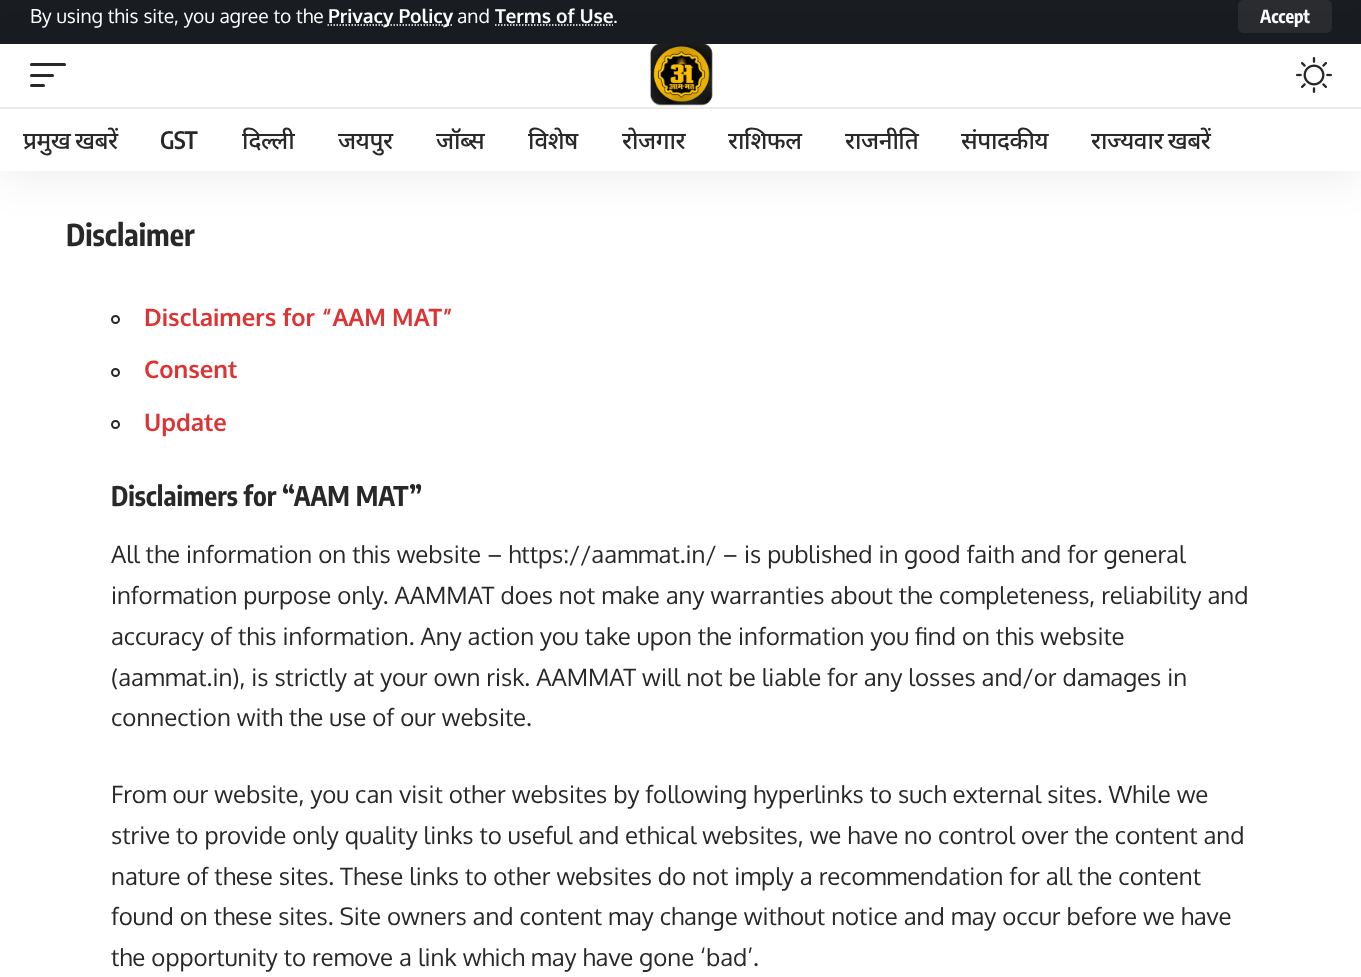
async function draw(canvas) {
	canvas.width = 1361;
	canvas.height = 977;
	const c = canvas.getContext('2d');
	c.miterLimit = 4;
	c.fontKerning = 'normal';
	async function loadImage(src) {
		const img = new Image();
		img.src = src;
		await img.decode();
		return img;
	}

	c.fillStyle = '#fff';
	c.fillRect(0, 0, 1361, 977);
	c.fillStyle = '#191c20';
	c.fillRect(0, 0, 1361, 44);
	c.font = '19.25px Oxygen';
	c.fillStyle = '#fff';
	c.fillText('By using this site, you agree to the', 30, 23);
	c.beginPath();
	c.moveTo(327.5, 25);
	c.lineTo(452.5, 25);
	c.strokeStyle = '#fff';
	c.lineWidth = 1.5;
	c.setLineDash([1.5, 1.5]);
	c.stroke();
	c.font = 'bold 19.25px Oxygen';
	c.fillText('Privacy Policy', 328, 23);
	c.font = '19.25px Oxygen';
	c.fillText('and', 457, 23);
	c.font = 'bold 19.25px Oxygen';
	c.fillText('Terms of Use', 495, 23);
	c.beginPath();
	c.moveTo(495, 25);
	c.lineTo(613, 25);
	c.stroke();
	c.font = '19.25px Oxygen';
	c.fillText('.', 613, 23);
	c.fillStyle = '#2a2c30';
	c.beginPath();
	c.roundRect(1238, 0, 94, 33, 5);
	c.fill();
	c.font = 'bold 18px Encode Sans Condensed';
	c.fillStyle = '#fff';
	c.fillText('Accept', 1260, 23);
	c.save();
	c.beginPath();
	c.moveTo(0, 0);
	c.lineTo(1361, 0);
	c.lineTo(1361, 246);
	c.lineTo(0, 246);
	c.closePath();
	c.moveTo(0, 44);
	c.lineTo(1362, 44);
	c.lineTo(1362, 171);
	c.lineTo(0, 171);
	c.closePath();
	c.clip('evenodd');
	c.fillStyle = '#00000012';
	c.filter = 'blur(22.5px)';
	c.beginPath();
	c.rect(0, 50, 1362, 127);
	c.fill();
	c.filter = 'none';
	c.restore();
	c.fillStyle = '#282828';
	c.beginPath();
	c.roundRect(30, 63, 36, 3, 1.5);
	c.fill();
	c.beginPath();
	c.roundRect(30, 74, 24, 3, 1.5);
	c.fill();
	c.beginPath();
	c.roundRect(30, 84, 15, 3, 1.5);
	c.fill();
	c.drawImage(await loadImage('img1.png'), 649, 43, 64, 63);
	c.drawImage(await loadImage('img2.png'), 1296, 57, 36, 36);
	c.fillStyle = '#eaeaea';
	c.fillRect(0, 107, 1361, 2);
	c.letterSpacing = '-0.5px';
	c.wordSpacing = '-1px';
	c.font = '500 24px Noto Sans';
	c.fillStyle = '#282828';
	c.fillText('प्रमुख खबरें', 23, 149);
	c.wordSpacing = '0px';
	c.font = '600 24px Encode Sans Condensed';
	c.fillText('GST', 160, 149);
	c.font = '500 24px Noto Sans';
	for (const [text, x, y] of [
		['दिल्ली', 242, 149],
		['जयपुर', 338, 149],
		['जॉब्स', 436, 149],
		['विशेष', 528, 149],
		['रोजगार', 622, 149],
		['राशिफल', 728, 149],
		['राजनीति', 845, 149],
		['संपादकीय', 961, 149],
	]) {
		c.fillText(text, x, y);
	}
	c.wordSpacing = '-1px';
	c.fillText('राज्यवार खबरें', 1091, 149);
	c.letterSpacing = '0px';
	c.wordSpacing = '0px';
	c.font = 'bold 30px Encode Sans Condensed';
	c.fillText('Disclaimer', 66, 246);
	c.beginPath();
	c.arc(115.5, 319.5, 3.5, 0, 2 * Math.PI);
	c.strokeStyle = '#282828';
	c.lineWidth = 2;
	c.setLineDash([]);
	c.stroke();
	c.font = 'bold 24px Oxygen';
	c.fillStyle = '#d33';
	c.fillText('Disclaimers for “AAM MAT”', 144, 326);
	c.beginPath();
	c.arc(115.5, 372.5, 3.5, 0, 2 * Math.PI);
	c.stroke();
	c.fillText('Consent', 144, 378);
	c.beginPath();
	c.arc(115.5, 424.5, 3.5, 0, 2 * Math.PI);
	c.stroke();
	c.fillText('Update', 144, 431);
	c.font = 'bold 27px Encode Sans Condensed';
	c.fillStyle = '#282828';
	c.fillText('Disclaimers for “AAM MAT”', 111, 506);
	c.font = '24px Oxygen';
	for (const [text, x, y] of [
		['All the information on this website – https://aammat.in/ – is published in good faith and for general', 111, 563],
		['information purpose only. AAMMAT does not make any warranties about the completeness, reliability and', 111, 604],
		['accuracy of this information. Any action you take upon the information you find on this website', 111, 645],
		['(aammat.in), is strictly at your own risk. AAMMAT will not be liable for any losses and/or damages in', 111, 686],
		['connection with the use of our website.', 111, 726],
		['From our website, you can visit other websites by following hyperlinks to such external sites. While we', 111, 803],
		['strive to provide only quality links to useful and ethical websites, we have no control over the content and', 111, 844],
		['nature of these sites. These links to other websites do not imply a recommendation for all the content', 111, 885],
		['found on these sites. Site owners and content may change without notice and may occur before we have', 111, 925],
		['the opportunity to remove a link which may have gone ‘bad’.', 111, 966],
	]) {
		c.fillText(text, x, y);
	}
}

draw(document.querySelector('canvas'));
